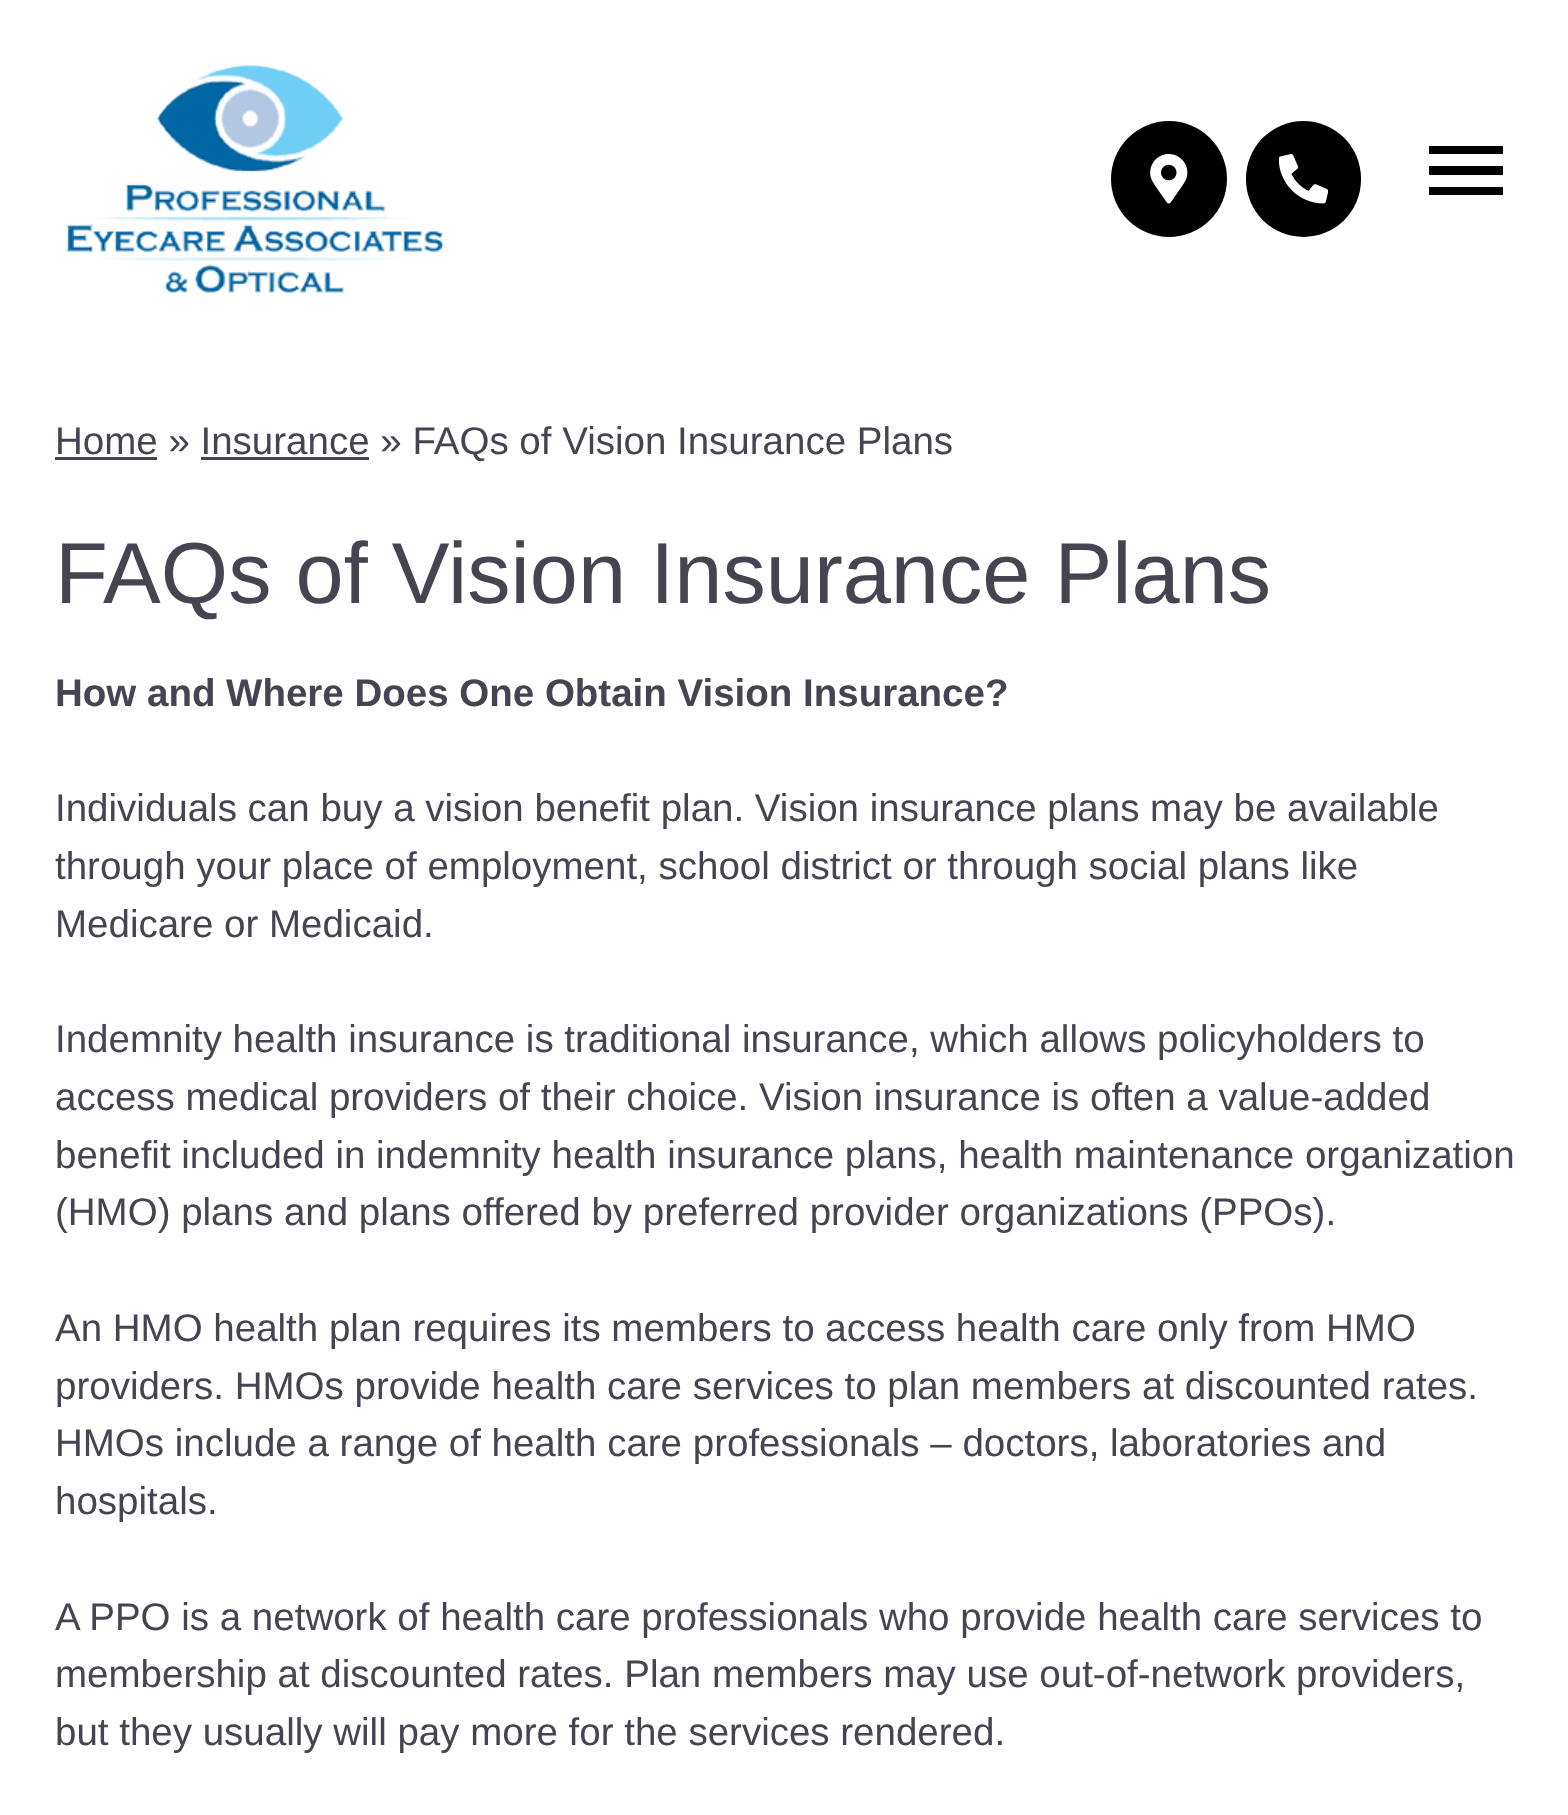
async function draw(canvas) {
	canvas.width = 1568;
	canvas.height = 1815;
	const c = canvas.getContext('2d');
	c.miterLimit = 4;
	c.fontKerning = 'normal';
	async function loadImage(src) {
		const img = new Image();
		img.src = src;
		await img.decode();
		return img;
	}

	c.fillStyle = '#fff';
	c.fillRect(0, 0, 1568, 1815);
	c.drawImage(await loadImage('img1.png'), 66, 64, 377, 229);
	c.fillStyle = '#000';
	c.beginPath();
	c.arc(1169, 179, 58, 0, 2 * Math.PI);
	c.fill();
	c.drawImage(await loadImage('img2.png'), 1150, 154, 38, 50);
	c.beginPath();
	c.roundRect(1246, 121, 115, 116, 57.5);
	c.fill();
	c.drawImage(await loadImage('img3.png'), 1279, 154, 49, 50);
	c.beginPath();
	c.moveTo(1429, 146);
	c.lineTo(1503, 146);
	c.lineTo(1503, 154);
	c.lineTo(1429, 154);
	c.lineTo(1429, 146);
	c.moveTo(1429, 166);
	c.lineTo(1503, 166);
	c.lineTo(1503, 175);
	c.lineTo(1429, 175);
	c.lineTo(1429, 166);
	c.moveTo(1429, 187);
	c.lineTo(1503, 187);
	c.lineTo(1503, 195);
	c.lineTo(1429, 195);
	c.closePath();
	c.fill();
	c.fillStyle = '#464451';
	c.fillRect(55, 457, 102, 3);
	c.font = '38.5px Liberation Sans';
	c.fillText('Home » Insurance » FAQs of Vision Insurance Plans', 55, 454);
	c.fillRect(201, 457, 168, 3);
	c.font = '86.6px Liberation Sans';
	c.fillText('FAQs of Vision Insurance Plans', 55, 603);
	c.font = 'bold 38.5px Liberation Sans';
	c.fillText('How and Where Does One Obtain Vision Insurance?', 55, 706);
	c.font = '38.5px Liberation Sans';
	for (const [text, x, y] of [
		['Individuals can buy a vision benefit plan. Vision insurance plans may be available', 55, 821],
		['through your place of employment, school district or through social plans like', 55, 879],
		['Medicare or Medicaid.', 55, 937],
		['Indemnity health insurance is traditional insurance, which allows policyholders to', 55, 1052],
		['access medical providers of their choice. Vision insurance is often a value-added', 55, 1110],
		['benefit included in indemnity health insurance plans, health maintenance organization', 55, 1168],
		['(HMO) plans and plans offered by preferred provider organizations (PPOs).', 55, 1225],
		['An HMO health plan requires its members to access health care only from HMO', 55, 1341],
		['providers. HMOs provide health care services to plan members at discounted rates.', 55, 1399],
		['HMOs include a range of health care professionals – doctors, laboratories and', 55, 1456],
		['hospitals.', 55, 1514],
		['A PPO is a network of health care professionals who provide health care services to', 55, 1630],
		['membership at discounted rates. Plan members may use out-of-network providers,', 55, 1687],
		['but they usually will pay more for the services rendered.', 55, 1745],
	]) {
		c.fillText(text, x, y);
	}
}

draw(document.querySelector('canvas'));
